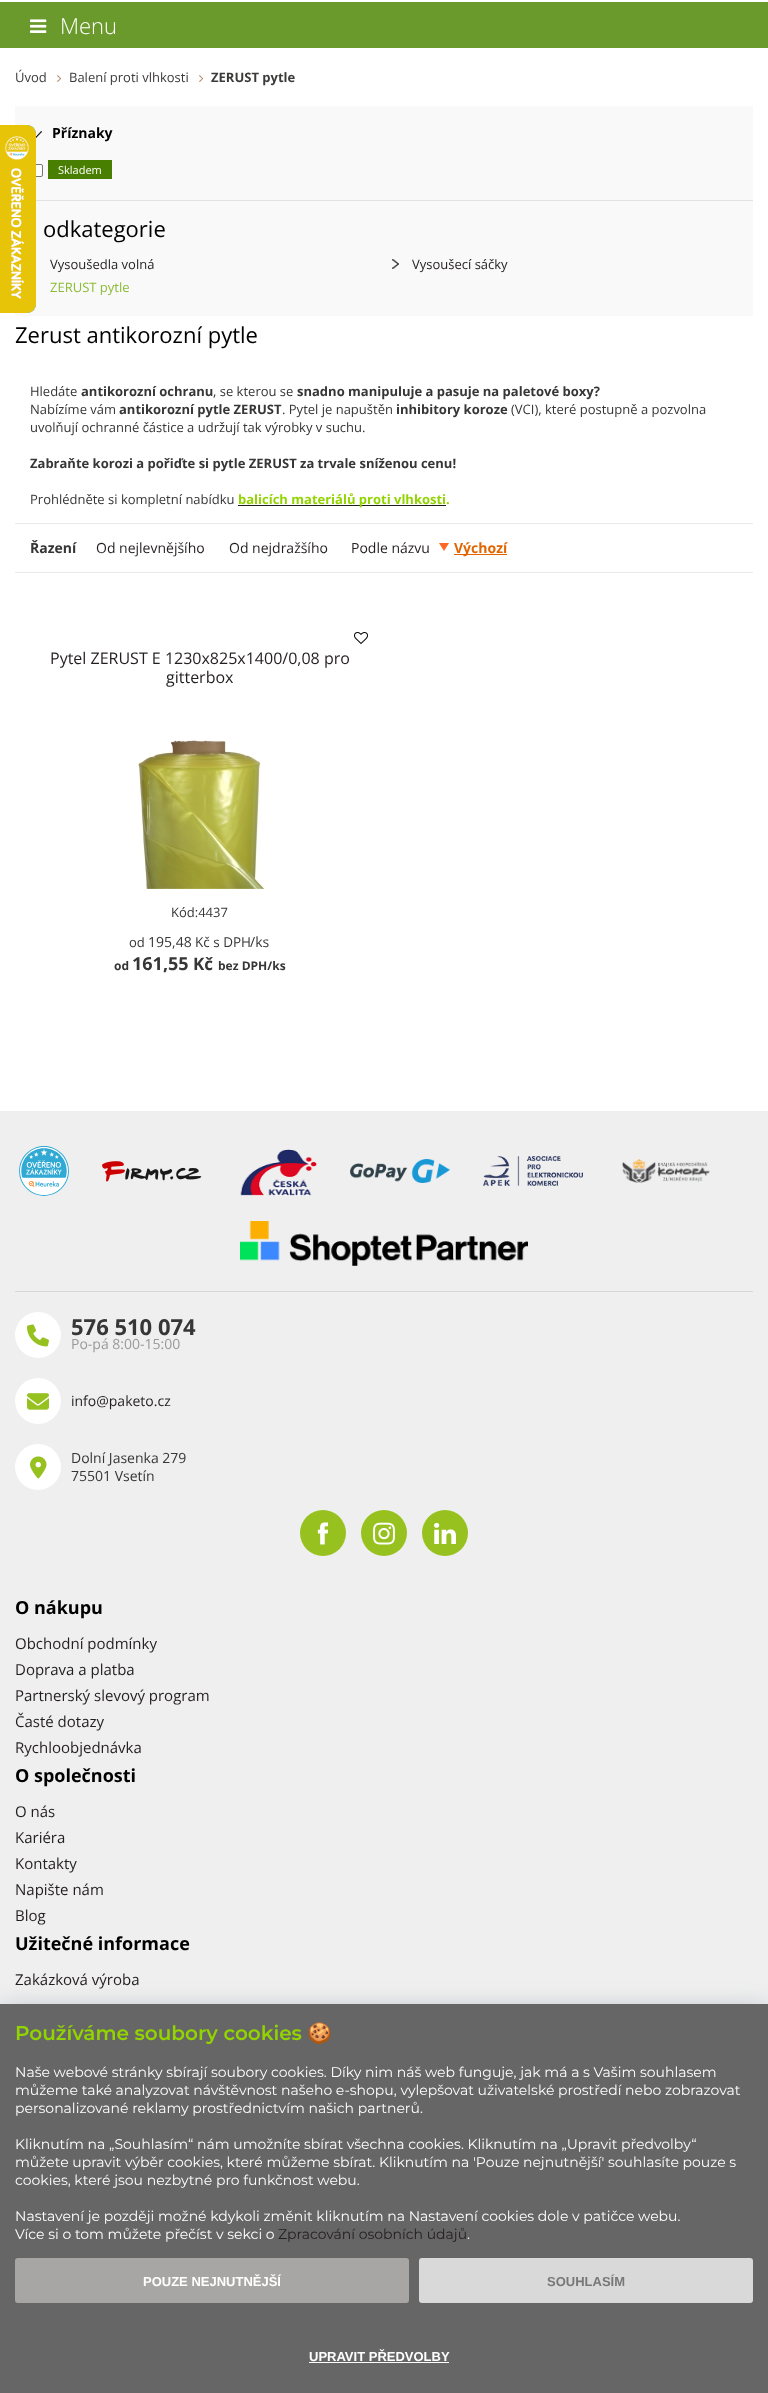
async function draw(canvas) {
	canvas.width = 768;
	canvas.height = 2393;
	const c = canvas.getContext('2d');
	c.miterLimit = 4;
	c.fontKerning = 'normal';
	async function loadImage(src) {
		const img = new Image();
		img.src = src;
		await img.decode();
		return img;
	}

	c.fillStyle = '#fff';
	c.fillRect(0, 0, 768, 2393);
	c.fillStyle = '#6a992c';
	c.fillRect(0, 2, 768, 46);
	c.drawImage(await loadImage('img1.png'), 30, 19, 17, 14);
	c.font = '300 22px Open Sans';
	c.fillStyle = '#fff';
	c.fillText('Menu', 60, 34);
	c.font = '13px Open Sans';
	c.fillStyle = '#3d3a3a';
	c.fillText('Úvod', 15, 82);
	c.drawImage(await loadImage('img2.png'), 57, 75, 4, 7);
	c.fillText('Balení proti vlhkosti', 69, 82);
	c.drawImage(await loadImage('img2.png'), 199, 75, 4, 7);
	c.font = 'bold 13px Open Sans';
	c.fillText('ZERUST pytle', 211, 82);
	c.fillStyle = '#f9f9f9';
	c.fillRect(15, 106, 738, 84);
	c.fillStyle = '#fff';
	c.beginPath();
	c.roundRect(30.5, 164.5, 12, 12, 1.5);
	c.fill();
	c.strokeStyle = '#767676';
	c.stroke();
	c.fillStyle = '#f9f9f9';
	c.fillRect(15, 201, 738, 115);
	c.drawImage(await loadImage('img3.png'), 0, 125, 36, 188);
	c.drawImage(await loadImage('img4.png'), 36, 131, 6, 7);
	c.font = 'bold 14px Open Sans';
	c.fillStyle = '#000';
	c.fillText('Příznaky', 52, 138);
	c.fillStyle = '#497f01';
	c.fillRect(48, 160, 64, 19);
	c.font = '11px Open Sans';
	c.fillStyle = '#fff';
	c.fillText('Skladem', 58, 174);
	c.fillStyle = '#f9f9f9';
	c.fillRect(36, 190, 717, 10);
	c.fillStyle = '#e2e2e2';
	c.fillRect(36, 200, 717, 1);
	c.font = '22px Open Sans';
	c.fillStyle = '#000';
	c.fillText('odkategorie', 43, 237);
	c.font = '13px Open Sans';
	c.fillStyle = '#231f20';
	c.fillText('Vysoušedla volná', 50, 269);
	c.drawImage(await loadImage('img5.png'), 392, 259, 7, 10);
	c.fillText('Vysoušecí sáčky', 412, 269);
	c.fillStyle = '#8bbc37';
	c.fillText('ZERUST pytle', 50, 292);
	c.font = '22px Open Sans';
	c.fillStyle = '#000';
	c.fillText('Zerust antikorozní pytle', 15, 343);
	c.font = '13px Open Sans';
	c.fillStyle = '#363636';
	c.fillText('Hledáte', 30, 396);
	c.font = 'bold 13px Open Sans';
	c.fillText('antikorozní ochranu', 81, 396);
	c.font = '13px Open Sans';
	c.fillText(', se kterou se', 213, 396);
	c.font = 'bold 13px Open Sans';
	c.fillText('snadno manipuluje a pasuje na paletové boxy?', 297, 396);
	c.font = '13px Open Sans';
	c.fillText('Nabízíme vám', 30, 414);
	c.font = 'bold 13px Open Sans';
	c.fillText('antikorozní pytle ZERUST', 119, 414);
	c.font = '13px Open Sans';
	c.fillText('. Pytel je napuštěn', 282, 414);
	c.font = 'bold 13px Open Sans';
	c.fillText('inhibitory koroze', 396, 414);
	c.font = '13px Open Sans';
	c.fillText('(VCI), které postupně a pozvolna', 511, 414);
	c.fillText('uvolňují ochranné částice a udržují tak výrobky v suchu.', 30, 432);
	c.font = 'bold 13px Open Sans';
	c.fillText('Zabraňte korozi a pořiďte si pytle ZERUST za trvale sníženou cenu!', 30, 468);
	c.font = '13px Open Sans';
	c.fillText('Prohlédněte si kompletní nabídku', 30, 504);
	c.fillStyle = '#231f20';
	c.fillRect(238, 505, 208, 1);
	c.font = 'bold 13px Open Sans';
	c.fillStyle = '#92d400';
	c.fillText('balicích materiálů proti vlhkosti.', 238, 504);
	c.fillStyle = '#e9e9e9';
	c.fillRect(15, 523, 738, 1);
	c.fillRect(15, 572, 738, 1);
	c.font = 'bold 14px Open Sans';
	c.fillStyle = '#363636';
	c.fillText('Řazení', 30, 553);
	c.font = '14px Open Sans';
	c.fillStyle = '#231f20';
	for (const [text, x, y] of [
		['Od nejlevnějšího', 96, 553],
		['Od nejdražšího', 229, 553],
		['Podle názvu', 351, 553],
	]) {
		c.fillText(text, x, y);
	}
	c.fillStyle = '#fc6721';
	c.beginPath();
	c.moveTo(439, 543);
	c.lineTo(449, 543);
	c.lineTo(444, 551);
	c.closePath();
	c.fill();
	c.fillStyle = '#e26500';
	c.fillRect(454, 554, 53, 1);
	c.font = 'bold 14px Open Sans';
	c.fillText('Výchozí', 454, 553);
	c.font = '16px Open Sans';
	c.fillStyle = '#231f20';
	c.fillText('Pytel ZERUST E 1230x825x1400/0,08 pro', 50, 664);
	c.fillText('gitterbox', 166, 683);
	c.drawImage(await loadImage('img6.png'), 137, 739, 128, 150);
	c.drawImage(await loadImage('img7.png'), 354, 632, 14, 12);
	c.font = '13px Open Sans';
	c.fillStyle = '#363636';
	c.fillText('Kód:4437', 171, 917);
	c.fillText('od', 129, 947);
	c.font = '14px Open Sans';
	c.fillText('195,48', 148, 947);
	c.font = '13.5px Open Sans';
	c.fillText('Kč s DPH', 195, 947);
	c.font = '14px Open Sans';
	c.fillText('/ks', 250, 947);
	c.font = 'bold 12px Open Sans';
	c.fillText('od', 114, 970);
	c.font = 'bold 18px Open Sans';
	c.fillText('161,55', 132, 970);
	c.font = 'bold 17px Open Sans';
	c.fillText('Kč', 193, 970);
	c.font = 'bold 12px Open Sans';
	c.fillText('bez DPH/ks', 218, 970);
	c.fillStyle = '#efefef';
	c.fillRect(0, 1111, 768, 893);
	c.fillStyle = '#d6d6d6';
	c.fillRect(15, 1291, 738, 1);
	c.drawImage(await loadImage('img8.png'), 19, 1146, 50, 50);
	c.drawImage(await loadImage('img9.png'), 102, 1161, 100, 21);
	c.drawImage(await loadImage('img10.png'), 240, 1149, 77, 47);
	c.drawImage(await loadImage('img11.png'), 350, 1159, 100, 24);
	c.drawImage(await loadImage('img12.png'), 483, 1156, 100, 30);
	c.drawImage(await loadImage('img13.png'), 622, 1159, 88, 24);
	c.drawImage(await loadImage('img14.png'), 240, 1221, 288, 45);
	c.fillStyle = '#fff';
	c.beginPath();
	c.arc(38, 1335, 23, 0, 2 * Math.PI);
	c.fill();
	c.drawImage(await loadImage('img15.png'), 27, 1324, 22, 23);
	c.font = 'bold 22px Open Sans';
	c.fillStyle = '#363636';
	c.fillText('576 510 074', 71, 1335);
	c.font = '14px Open Sans';
	c.fillStyle = '#999';
	c.fillText('Po-pá 8:00-15:00', 71, 1349);
	c.fillStyle = '#fff';
	c.beginPath();
	c.arc(38, 1401, 23, 0, 2 * Math.PI);
	c.fill();
	c.drawImage(await loadImage('img16.png'), 27, 1393, 22, 17);
	c.fillStyle = '#231f20';
	c.fillText('info@paketo.cz', 71, 1406);
	c.fillStyle = '#fff';
	c.beginPath();
	c.arc(38, 1467, 23, 0, 2 * Math.PI);
	c.fill();
	c.drawImage(await loadImage('img17.png'), 30, 1456, 17, 23);
	c.fillStyle = '#363636';
	c.fillText('Dolní Jasenka 279', 71, 1463);
	c.fillText('75501 Vsetín', 71, 1481);
	c.fillStyle = '#96c11f';
	c.beginPath();
	c.arc(323, 1533, 23, 0, 2 * Math.PI);
	c.fill();
	c.drawImage(await loadImage('img18.png'), 317, 1522, 12, 23);
	c.beginPath();
	c.arc(384, 1533, 23, 0, 2 * Math.PI);
	c.fill();
	c.drawImage(await loadImage('img19.png'), 373, 1522, 22, 23);
	c.beginPath();
	c.arc(445, 1533, 23, 0, 2 * Math.PI);
	c.fill();
	c.drawImage(await loadImage('img20.png'), 434, 1522, 22, 22);
	c.font = 'bold 18px Open Sans';
	c.fillStyle = '#000';
	c.fillText('O nákupu', 15, 1614);
	c.font = '15px Open Sans';
	c.fillStyle = '#231f20';
	for (const [text, x, y] of [
		['Obchodní podmínky', 15, 1649],
		['Doprava a platba', 15, 1675],
		['Partnerský slevový program', 15, 1701],
		['Časté dotazy', 15, 1727],
		['Rychloobjednávka', 15, 1753],
	]) {
		c.fillText(text, x, y);
	}
	c.font = 'bold 18px Open Sans';
	c.fillStyle = '#000';
	c.fillText('O společnosti', 15, 1782);
	c.font = '15px Open Sans';
	c.fillStyle = '#231f20';
	for (const [text, x, y] of [
		['O nás', 15, 1817],
		['Kariéra', 15, 1843],
		['Kontakty', 15, 1869],
		['Napište nám', 15, 1895],
		['Blog', 15, 1921],
	]) {
		c.fillText(text, x, y);
	}
	c.font = 'bold 18px Open Sans';
	c.fillStyle = '#000';
	c.fillText('Užitečné informace', 15, 1950);
	c.font = '15px Open Sans';
	c.fillStyle = '#231f20';
	c.fillText('Zakázková výroba', 15, 1985);
	c.fillStyle = '#38506180';
	c.filter = 'blur(14.5px)';
	c.beginPath();
	c.rect(0, 2015, 768, 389);
	c.fill();
	c.filter = 'none';
	c.fillStyle = '#666';
	c.fillRect(0, 2004, 768, 389);
	c.font = '600 20px Montserrat';
	c.fillStyle = '#92d400';
	c.fillText('Používáme soubory cookies', 15, 2040);
	c.font = 'bold 20px Noto Color Emoji';
	c.fillText('🍪', 307, 2040);
	c.font = '14px Montserrat';
	c.fillStyle = '#fff';
	for (const [text, x, y] of [
		['Naše webové stránky sbírají soubory cookies. Díky nim náš web funguje, jak má a s Vašim souhlasem', 15, 2077],
		['můžeme také analyzovat návštěvnost našeho e-shopu, vylepšovat uživatelské prostředí nebo zobrazovat', 15, 2095],
		['personalizované reklamy prostřednictvím našich partnerů.', 15, 2113],
		['Kliknutím na „Souhlasím“ nám umožníte sbírat všechna cookies. Kliknutím na „Upravit předvolby“', 15, 2149],
		['můžete upravit výběr cookies, které můžeme sbírat. Kliknutím na \'Pouze nejnutnější\' souhlasíte pouze s', 15, 2167],
		['cookies, které jsou nezbytné pro funkčnost webu.', 15, 2185],
		['Nastavení je později možné kdykoli změnit kliknutím na Nastavení cookies dole v patičce webu.', 15, 2221],
		['Více si o tom můžete přečíst v sekci o', 15, 2239],
	]) {
		c.fillText(text, x, y);
	}
	c.fillStyle = '#231f20';
	c.fillText('Zpracování osobních údajů', 278, 2239);
	c.fillStyle = '#fff';
	c.fillText('.', 467, 2239);
	c.fillStyle = '#a8a5a5';
	c.beginPath();
	c.roundRect(15, 2258, 394, 45, 3);
	c.fill();
	c.font = 'bold 13px Liberation Sans';
	c.fillStyle = '#fff';
	c.fillText('POUZE NEJNUTNĚJŠÍ', 143, 2286);
	c.fillStyle = '#d9d9d9';
	c.beginPath();
	c.roundRect(419, 2258, 334, 45, 3);
	c.fill();
	c.fillStyle = '#787878';
	c.fillText('SOUHLASÍM', 547, 2286);
	c.fillStyle = '#fff';
	c.fillText('UPRAVIT PŘEDVOLBY', 309, 2361);
	c.fillRect(309, 2362, 140, 1);
}

draw(document.querySelector('canvas'));
